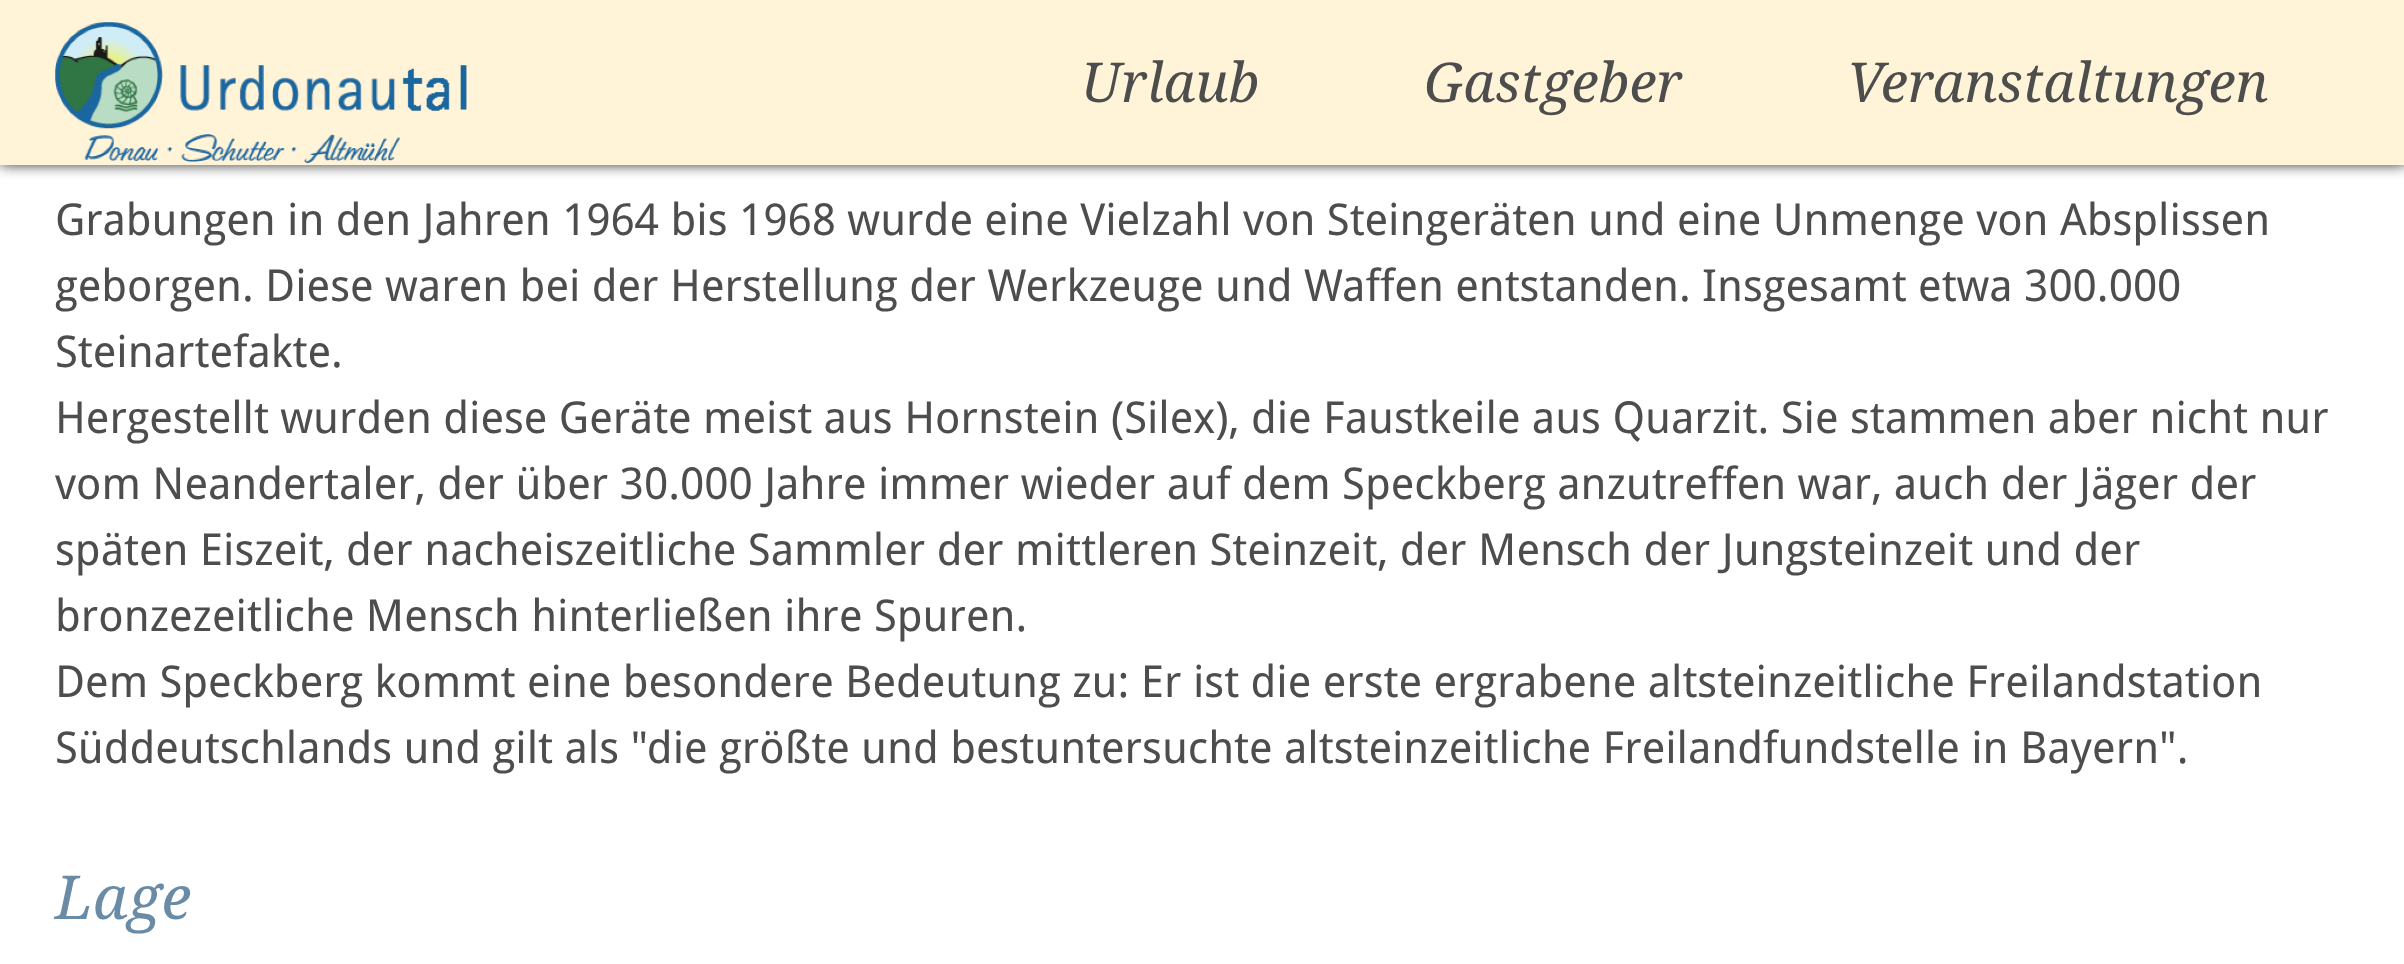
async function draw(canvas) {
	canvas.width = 2404;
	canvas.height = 964;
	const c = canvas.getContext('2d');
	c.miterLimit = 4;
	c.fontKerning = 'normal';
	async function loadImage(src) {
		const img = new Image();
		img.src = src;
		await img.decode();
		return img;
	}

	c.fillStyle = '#fff';
	c.fillRect(0, 0, 2404, 964);
	c.fillStyle = '#333';
	c.filter = 'blur(7px)';
	c.beginPath();
	c.rect(0, 0, 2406, 165);
	c.fill();
	c.filter = 'none';
	c.fillStyle = '#fff3d8';
	c.fillRect(0, 0, 2404, 165);
	c.drawImage(await loadImage('img1.png'), 55, 22, 412, 142);
	c.font = 'italic 55px Droid Serif';
	c.fillStyle = '#4d4d4d';
	for (const [text, x, y] of [
		['Urlaub', 1081, 102],
		['Gastgeber', 1424, 102],
		['Veranstaltungen', 1847, 102],
	]) {
		c.fillText(text, x, y);
	}
	c.font = '44px Droid Sans';
	for (const [text, x, y] of [
		['Grabungen in den Jahren 1964 bis 1968 wurde eine Vielzahl von Steingeräten und eine Unmenge von Absplissen', 55, 235],
		['geborgen. Diese waren bei der Herstellung der Werkzeuge und Waffen entstanden. Insgesamt etwa 300.000', 55, 301],
		['Steinartefakte.', 55, 367],
		['Hergestellt wurden diese Geräte meist aus Hornstein (Silex), die Faustkeile aus Quarzit. Sie stammen aber nicht nur', 55, 433],
		['vom Neandertaler, der über 30.000 Jahre immer wieder auf dem Speckberg anzutreffen war, auch der Jäger der', 55, 499],
		['späten Eiszeit, der nacheiszeitliche Sammler der mittleren Steinzeit, der Mensch der Jungsteinzeit und der', 55, 565],
		['bronzezeitliche Mensch hinterließen ihre Spuren.', 55, 631],
		['Dem Speckberg kommt eine besondere Bedeutung zu: Er ist die erste ergrabene altsteinzeitliche Freilandstation', 55, 697],
		['Süddeutschlands und gilt als "die größte und bestuntersuchte altsteinzeitliche Freilandfundstelle in Bayern".', 55, 763],
	]) {
		c.fillText(text, x, y);
	}
	c.font = 'italic 60.5px Droid Serif';
	c.fillStyle = '#698ba6';
	c.fillText('Lage', 55, 919);
}

draw(document.querySelector('canvas'));
